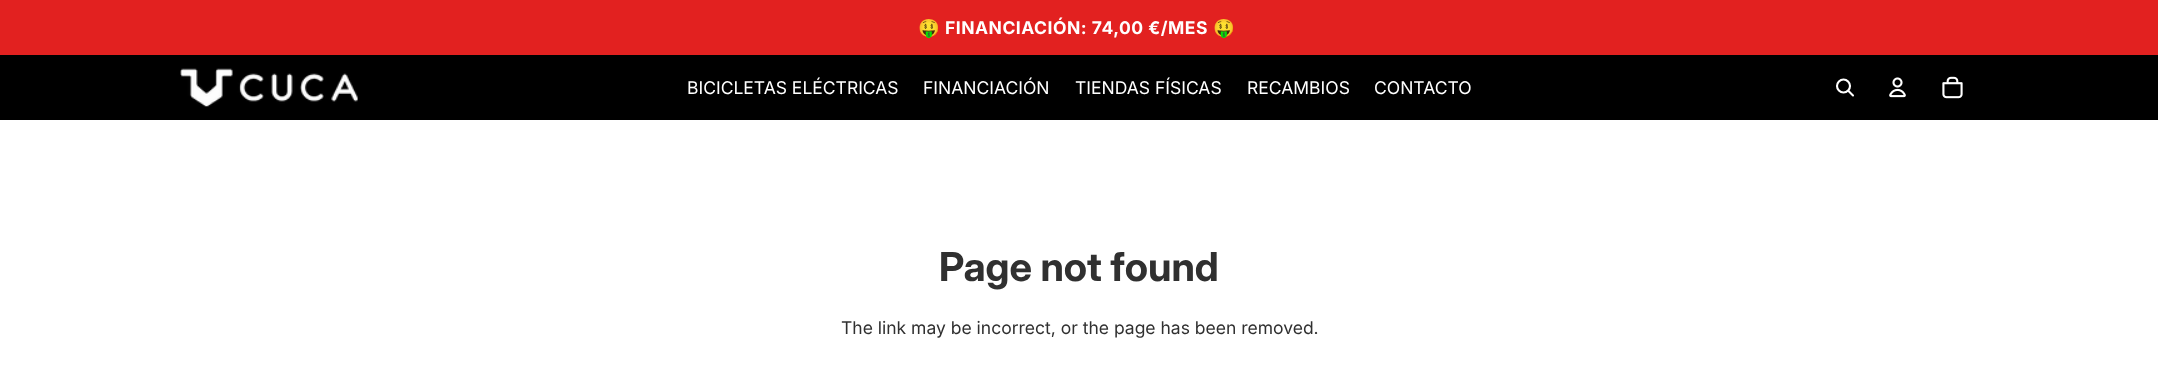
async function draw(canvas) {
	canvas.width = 2158;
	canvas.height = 371;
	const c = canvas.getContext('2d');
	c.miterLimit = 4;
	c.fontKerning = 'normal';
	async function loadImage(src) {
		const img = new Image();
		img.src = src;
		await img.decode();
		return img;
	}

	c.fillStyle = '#fff';
	c.fillRect(0, 0, 2158, 371);
	c.fillStyle = '#e22120';
	c.fillRect(0, 0, 2158, 55);
	c.letterSpacing = '0.5px';
	c.font = 'bold 17.5px Noto Color Emoji';
	c.fillStyle = '#fff';
	c.fillText('🤑', 918, 34);
	c.font = 'bold 17.5px Inter';
	c.fillText('FINANCIACIÓN: 74,00 €/MES', 945, 34);
	c.font = 'bold 17.5px Noto Color Emoji';
	c.fillText('🤑', 1213, 34);
	c.fillStyle = '#000';
	c.fillRect(0, 55, 2158, 65);
	c.drawImage(await loadImage('img1.png'), 180, 68, 178, 39);
	c.letterSpacing = '0px';
	c.font = '17.5px Inter';
	c.fillStyle = '#fff';
	for (const [text, x, y] of [
		['BICICLETAS ELÉCTRICAS', 687, 94],
		['FINANCIACIÓN', 923, 94],
		['TIENDAS FÍSICAS', 1075, 94],
		['RECAMBIOS', 1247, 94],
		['CONTACTO', 1374, 94],
	]) {
		c.fillText(text, x, y);
	}
	c.beginPath();
	c.arc(1843.5, 86, 6.5, 0, 2 * Math.PI);
	c.strokeStyle = '#fff';
	c.lineWidth = 2.1;
	c.stroke();
	c.beginPath();
	c.moveTo(1848.5, 91);
	c.lineTo(1853, 95.5);
	c.lineCap = 'round';
	c.lineJoin = 'round';
	c.stroke();
	c.drawImage(await loadImage('img2.png'), 1889, 77, 17, 21);
	c.drawImage(await loadImage('img3.png'), 1942, 76, 21, 23);
	c.font = 'bold 40px "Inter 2"';
	c.fillStyle = '#303030';
	c.fillText('Page not found', 939, 281);
	c.font = '17.5px Inter';
	c.fillText('The link may be incorrect, or the page has been removed.', 841, 334);
}

draw(document.querySelector('canvas'));
